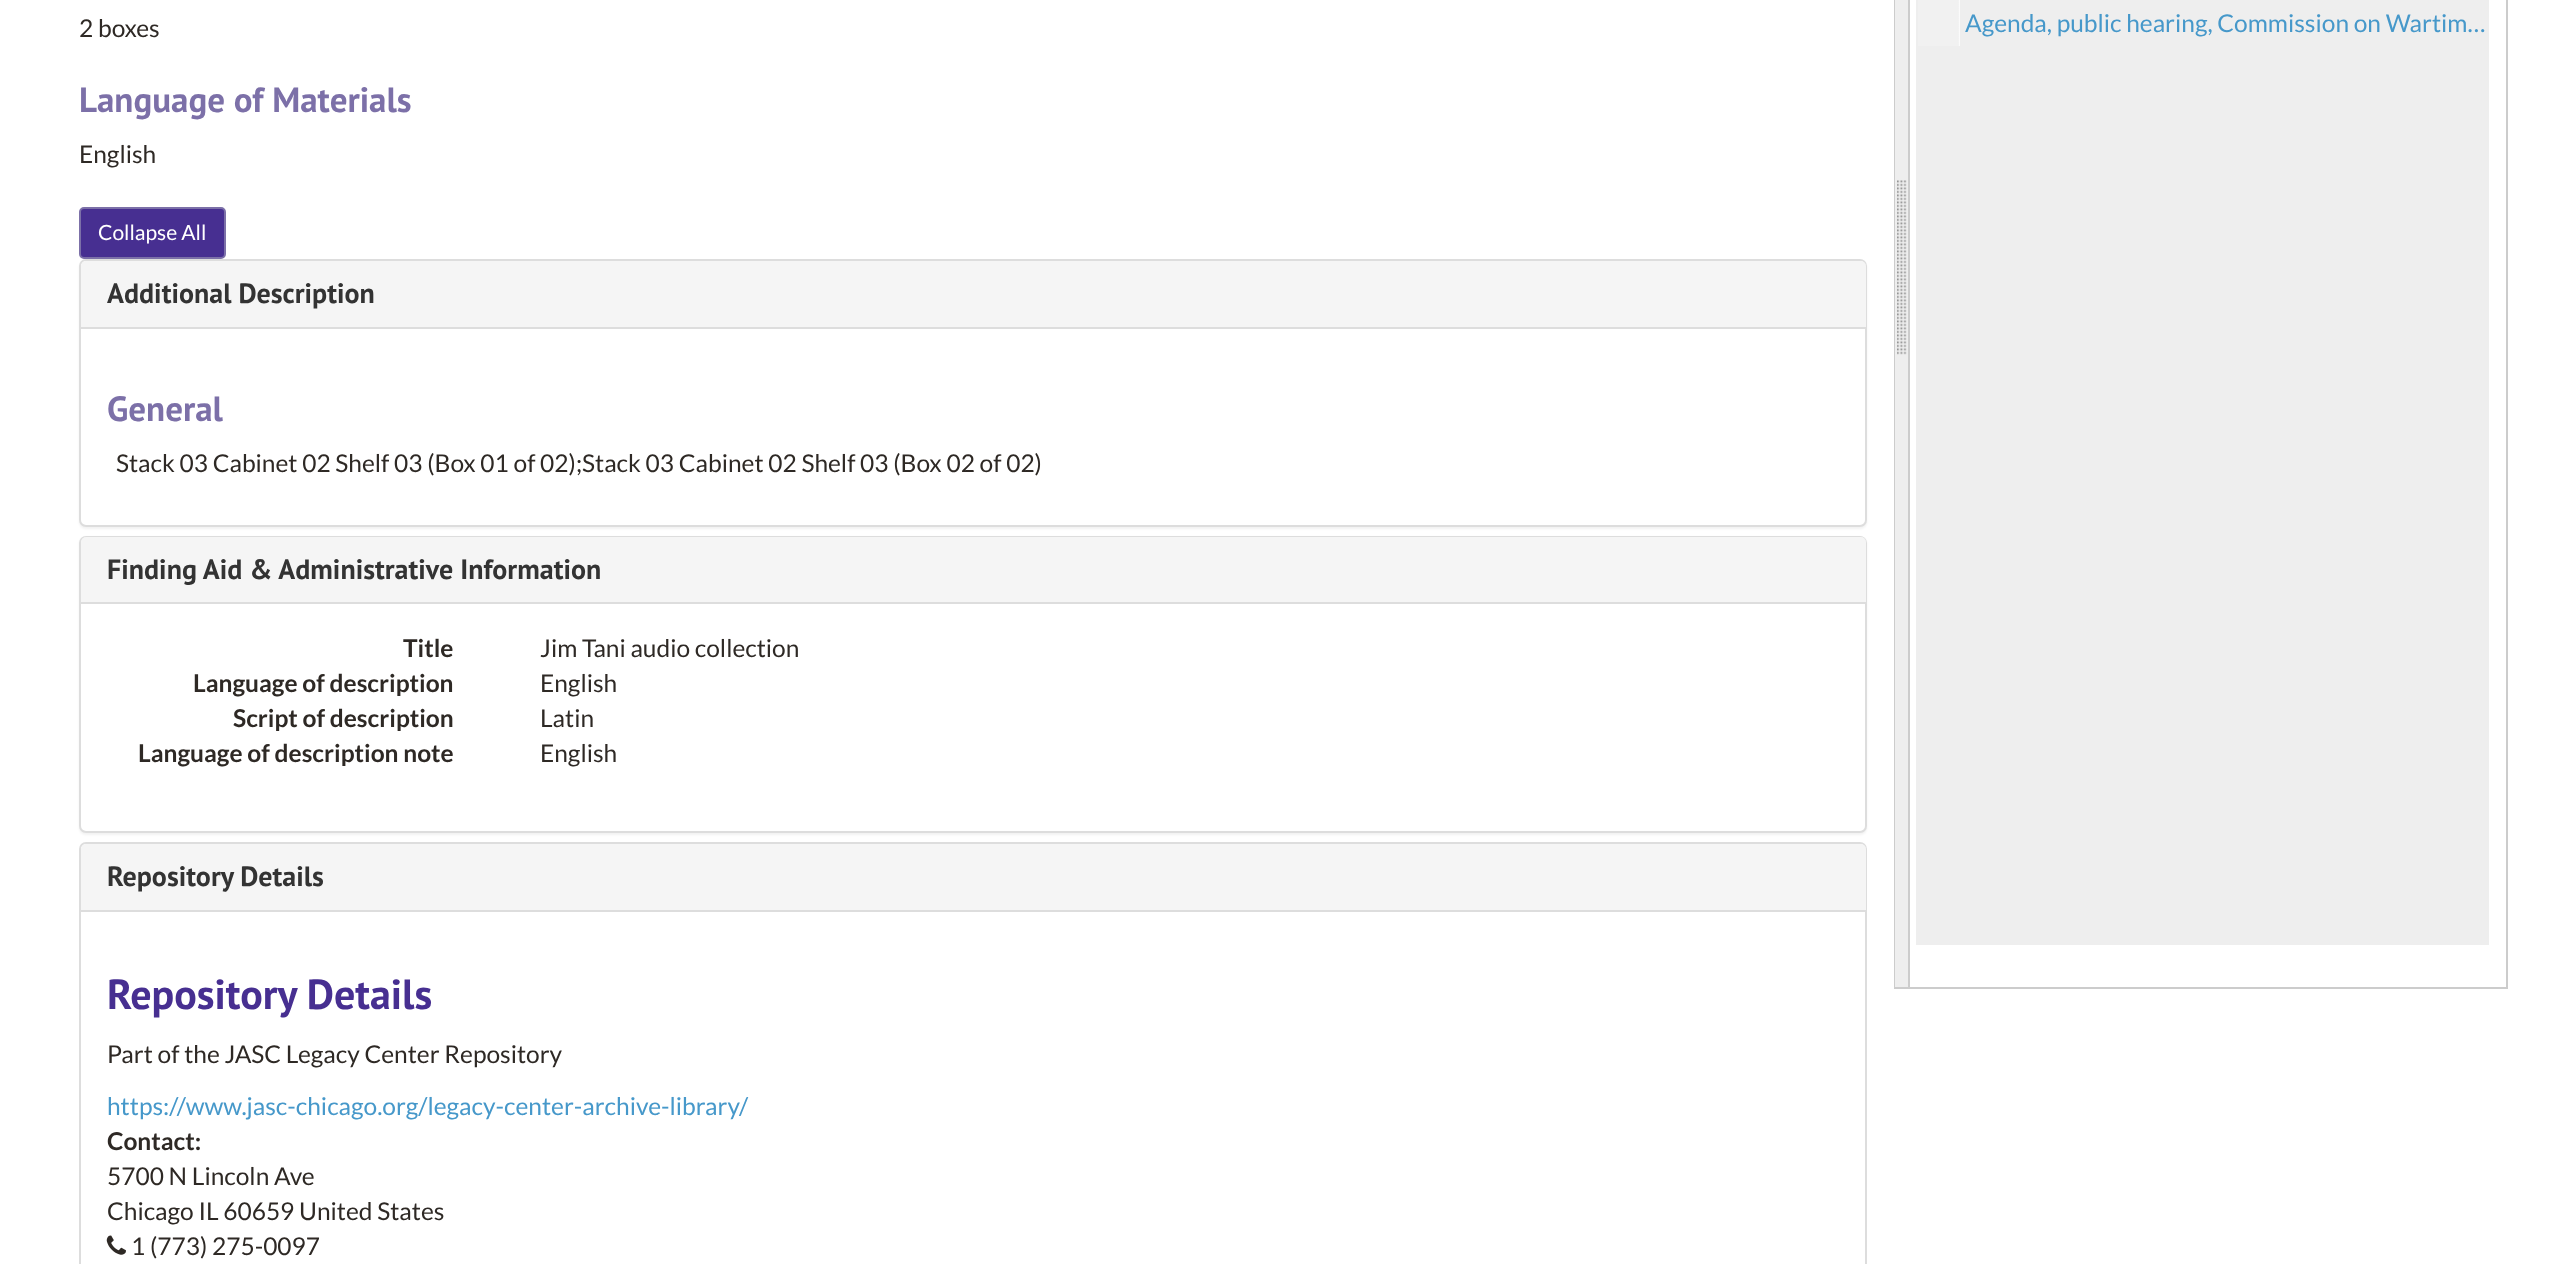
async function draw(canvas) {
	canvas.width = 2560;
	canvas.height = 1264;
	const c = canvas.getContext('2d');
	c.miterLimit = 4;
	c.fontKerning = 'normal';
	async function loadImage(src) {
		const img = new Image();
		img.src = src;
		await img.decode();
		return img;
	}
	let gradient;

	c.fillStyle = '#fff';
	c.fillRect(0, 0, 2560, 1264);
	c.font = '24.5px Lato';
	c.fillStyle = '#2e2925';
	c.fillText('2 boxes', 79, 37);
	c.font = 'bold 35px PT Sans';
	c.fillStyle = '#7c70a8';
	c.fillText('Language of Materials', 79, 112);
	c.font = '24.5px Lato';
	c.fillStyle = '#2e2925';
	c.fillText('English', 79, 163);
	c.fillStyle = '#0000000d';
	c.filter = 'blur(1px)';
	c.beginPath();
	c.roundRect(79, 261, 1788, 268, 7);
	c.fill();
	c.filter = 'none';
	c.fillStyle = '#472f91';
	c.beginPath();
	c.roundRect(80, 208, 145, 50, 4);
	c.fill();
	c.strokeStyle = '#7c70a8';
	c.lineWidth = 2;
	c.stroke();
	c.font = '21px Lato';
	c.fillStyle = '#fff';
	c.fillText('Collapse All', 98, 240);
	c.beginPath();
	c.roundRect(80, 260, 1786, 266, 6);
	c.fill();
	c.strokeStyle = '#ddd';
	c.stroke();
	c.fillStyle = '#f5f5f5';
	c.beginPath();
	c.roundRect(81, 261, 1785, 66, [5, 5, 0, 0]);
	c.fill();
	c.font = 'bold 28px PT Sans';
	c.fillStyle = '#333';
	c.fillText('Additional Description', 107, 303);
	c.fillStyle = '#ddd';
	c.fillRect(81, 327, 1785, 2);
	c.font = 'bold 35px PT Sans';
	c.fillStyle = '#7c70a8';
	c.fillText('General', 107, 421);
	c.font = '24.5px Lato';
	c.fillStyle = '#2e2925';
	c.fillText('Stack 03 Cabinet 02 Shelf 03 (Box 01 of 02);Stack 03 Cabinet 02 Shelf 03 (Box 02 of 02)', 116, 472);
	c.fillStyle = '#0000000d';
	c.filter = 'blur(1px)';
	c.beginPath();
	c.roundRect(79, 537, 1788, 298, 7);
	c.fill();
	c.filter = 'none';
	c.fillStyle = '#fff';
	c.beginPath();
	c.roundRect(80, 537, 1786, 295, 6);
	c.fill();
	c.stroke();
	c.fillStyle = '#f5f5f5';
	c.beginPath();
	c.roundRect(81, 537, 1785, 65, [5, 5, 0, 0]);
	c.fill();
	c.font = 'bold 28px PT Sans';
	c.fillStyle = '#333';
	c.fillText('Finding Aid & Administrative Information', 107, 579);
	c.fillStyle = '#ddd';
	c.fillRect(81, 602, 1785, 2);
	c.font = 'bold 24.5px Lato';
	c.fillStyle = '#2e2925';
	c.fillText('Title', 403, 657);
	c.font = '24.5px Lato';
	c.fillText('Jim Tani audio collection', 540, 657);
	c.font = 'bold 24.5px Lato';
	c.fillText('Language of description', 193, 692);
	c.font = '24.5px Lato';
	c.fillText('English', 540, 692);
	c.font = 'bold 24.5px Lato';
	c.fillText('Script of description', 233, 727);
	c.font = '24.5px Lato';
	c.fillText('Latin', 540, 727);
	c.font = 'bold 24.5px Lato';
	c.fillText('Language of description note', 138, 762);
	c.font = '24.5px Lato';
	c.fillText('English', 540, 762);
	c.beginPath();
	c.roundRect(80, 843, 1786, 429, 6);
	c.stroke();
	c.fillStyle = '#f5f5f5';
	c.beginPath();
	c.roundRect(81, 844, 1785, 66, [5, 5, 0, 0]);
	c.fill();
	c.font = 'bold 28px PT Sans';
	c.fillStyle = '#333';
	c.fillText('Repository Details', 107, 886);
	c.fillStyle = '#ddd';
	c.fillRect(81, 910, 1785, 2);
	c.font = 'bold 42px PT Sans';
	c.fillStyle = '#472f91';
	c.fillText('Repository Details', 107, 1009);
	c.font = '24.5px Lato';
	c.fillStyle = '#2e2925';
	c.fillText('Part of the JASC Legacy Center Repository', 107, 1063);
	c.fillStyle = '#4698ca';
	c.fillText('https://www.jasc-chicago.org/legacy-center-archive-library/', 107, 1115);
	c.font = 'bold 24.5px Lato';
	c.fillStyle = '#2e2925';
	c.fillText('Contact:', 107, 1150);
	c.font = '24.5px Lato';
	c.fillText('5700 N Lincoln Ave', 107, 1185);
	c.fillText('Chicago IL 60659 United States', 107, 1220);
	c.drawImage(await loadImage('img1.png'), 106, 1235, 20, 20);
	c.fillText('1 (773) 275-0097', 131, 1255);
	c.strokeStyle = '#ccc';
	c.strokeRect(1895, -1, 612, 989);
	c.fillStyle = '#eee';
	c.fillRect(1895, 0, 13, 987);
	c.drawImage(await loadImage('img2.png'), 1897, 180, 10, 175);
	c.fillStyle = '#ccc';
	c.fillRect(1908, 0, 2, 987);
	c.fillStyle = '#eee';
	c.fillRect(1916, 0, 573, 945);
	gradient = c.createLinearGradient(1918, 21, 1960, 21);
	gradient.addColorStop(0, '#f1f1f1');
	gradient.addColorStop(0.96, '#f1f1f1');
	gradient.addColorStop(1, '#fff');
	c.fillStyle = gradient;
	c.fillRect(1918, 0, 42, 46);
	c.fillStyle = '#4698ca';
	c.fillText('Agenda, public hearing, Commission on Wartim…', 1965, 32);
}

draw(document.querySelector('canvas'));
